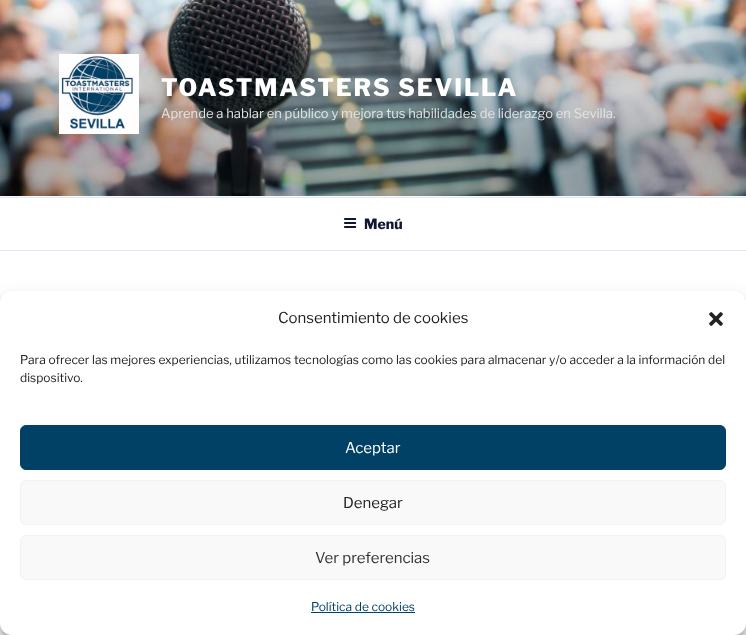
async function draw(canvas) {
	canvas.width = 746;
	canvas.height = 635;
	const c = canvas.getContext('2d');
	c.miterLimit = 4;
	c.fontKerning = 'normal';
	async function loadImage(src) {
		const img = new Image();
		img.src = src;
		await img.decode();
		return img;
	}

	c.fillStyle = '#fff';
	c.fillRect(0, 0, 746, 635);
	c.fillStyle = '#f7f8fc';
	c.fillRect(0, 196, 746, 1);
	c.drawImage(await loadImage('img1.png'), 0, 0, 746, 196);
	c.drawImage(await loadImage('img2.png'), 59, 54, 80, 80);
	c.letterSpacing = '1.9px';
	c.font = '100 24px Libre Franklin';
	c.fillStyle = '#fff';
	c.fillText('TOASTMASTERS SEVILLA', 161, 96);
	c.letterSpacing = '0px';
	c.font = '100 13px "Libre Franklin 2"';
	c.fillStyle = '#e2e4e4';
	c.fillText('Aprende a hablar en público y mejora tus habilidades de liderazgo en Sevilla.', 161, 118);
	c.fillStyle = '#e4e8f6';
	c.fillRect(0, 197, 746, 1);
	c.fillRect(0, 250, 746, 1);
	c.drawImage(await loadImage('img3.png'), 344, 218, 13, 10);
	c.font = '100 14px Libre Franklin';
	c.fillStyle = '#111732';
	c.fillText('Menú', 364, 229);
	c.fillStyle = '#0000003b';
	c.filter = 'blur(3px)';
	c.beginPath();
	c.roundRect(0, 297, 746, 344, 12);
	c.fill();
	c.filter = 'none';
	c.fillStyle = '#00000030';
	c.filter = 'blur(10px)';
	c.beginPath();
	c.roundRect(0, 301, 746, 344, 12);
	c.fill();
	c.filter = 'none';
	c.fillStyle = '#fff';
	c.beginPath();
	c.roundRect(0, 291, 746, 344, 12);
	c.fill();
	c.font = '100 15px "Libre Franklin 2"';
	c.fillStyle = '#222';
	c.fillText('Consentimiento de cookies', 278, 323);
	c.drawImage(await loadImage('img4.png'), 709, 312, 14, 14);
	c.wordSpacing = '0.1px';
	c.font = '100 12px "Libre Franklin 2"';
	c.fillText('Para ofrecer las mejores experiencias, utilizamos tecnologías como las cookies para almacenar y/o acceder a la información del', 20, 364);
	c.wordSpacing = '0px';
	c.fillText('dispositivo.', 20, 382);
	c.fillStyle = '#004165';
	c.beginPath();
	c.roundRect(20.5, 425.5, 705, 44, 5.5);
	c.fill();
	c.strokeStyle = '#004165';
	c.stroke();
	c.font = '100 15px "Libre Franklin 2"';
	c.fillStyle = '#fff';
	c.fillText('Aceptar', 345, 453);
	c.fillStyle = '#f9f9f9';
	c.beginPath();
	c.roundRect(20.5, 480.5, 705, 44, 5.5);
	c.fill();
	c.strokeStyle = '#f2f2f2';
	c.stroke();
	c.fillStyle = '#222';
	c.fillText('Denegar', 343, 508);
	c.fillStyle = '#f9f9f9';
	c.beginPath();
	c.roundRect(20.5, 535.5, 705, 44, 5.5);
	c.fill();
	c.stroke();
	c.fillStyle = '#333';
	c.fillText('Ver preferencias', 315, 563);
	c.font = '100 12px "Libre Franklin 2"';
	c.fillStyle = '#004165';
	c.fillText('Política de cookies', 311, 611);
	c.fillRect(311, 612, 104, 1);
}

draw(document.querySelector('canvas'));
